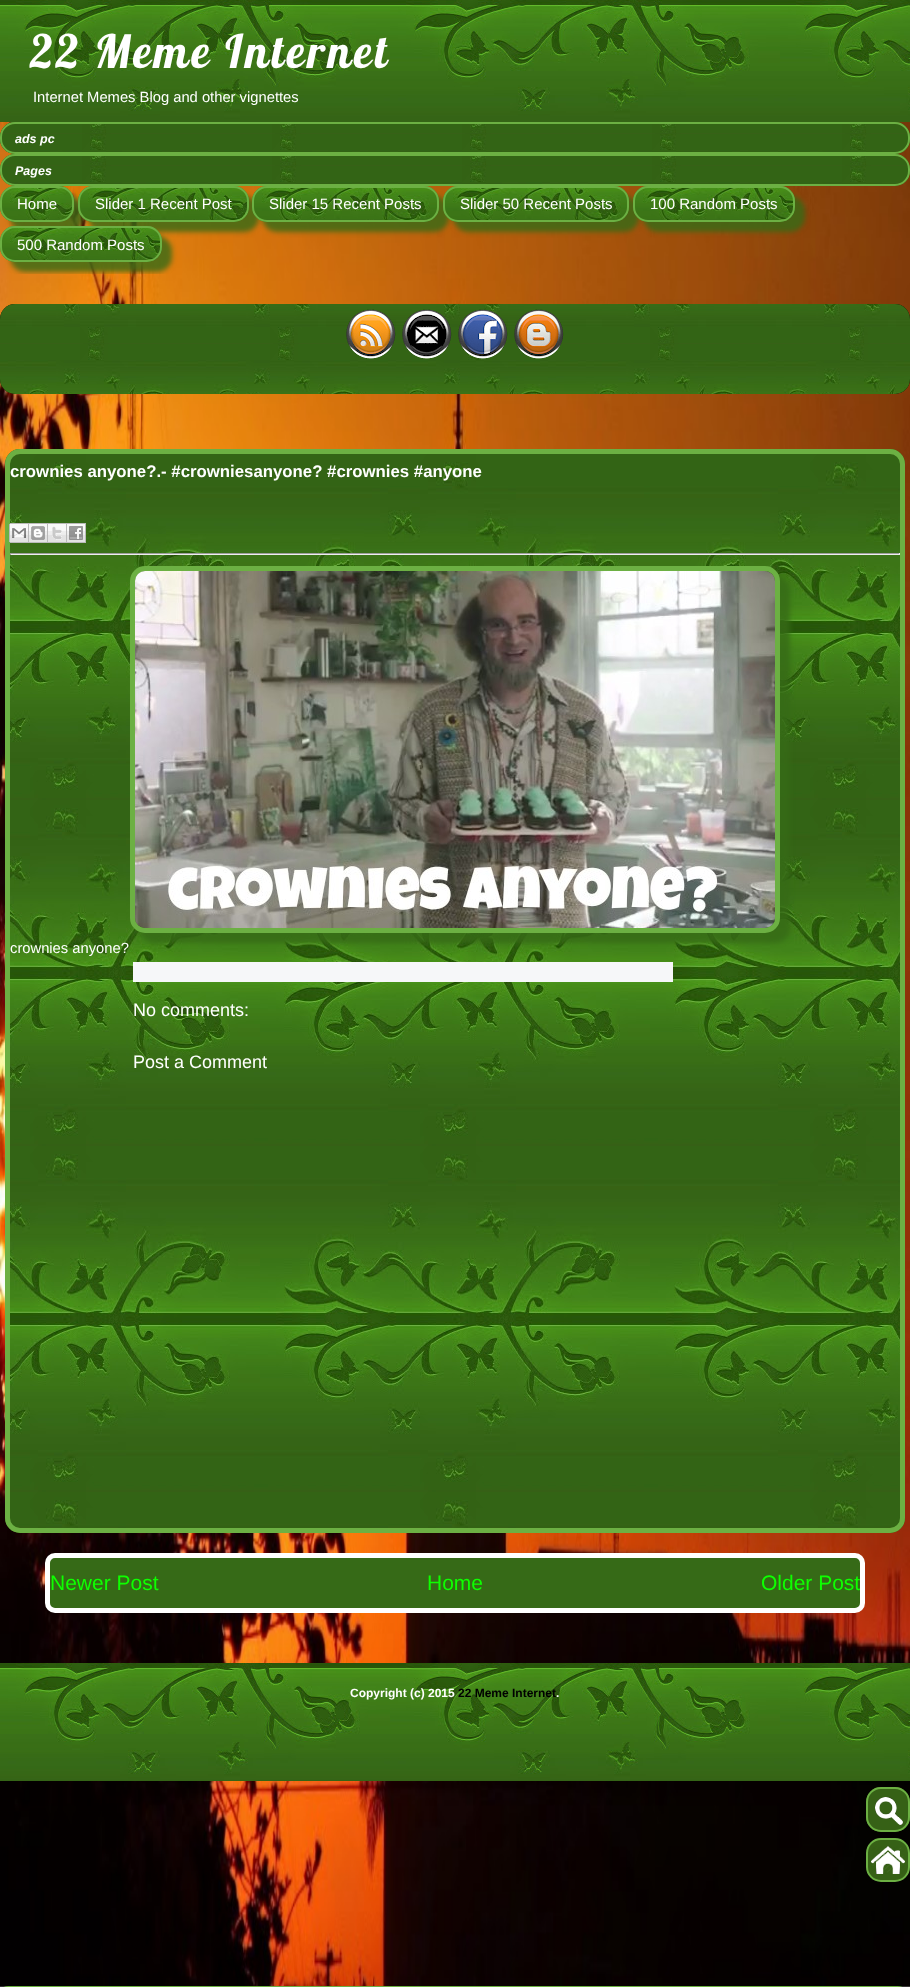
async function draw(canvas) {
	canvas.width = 910;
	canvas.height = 1987;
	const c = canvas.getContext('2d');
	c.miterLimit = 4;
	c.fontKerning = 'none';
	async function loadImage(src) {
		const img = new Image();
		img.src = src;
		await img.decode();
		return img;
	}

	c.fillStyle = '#fff';
	c.fillRect(0, 0, 910, 1987);
	c.drawImage(await loadImage('img1.png'), 0, 122, 910, 1865);
	c.drawImage(await loadImage('img2.png'), 0, 0, 910, 122);
	c.letterSpacing = '3px';
	c.font = '46px Lobster';
	c.fillText('22 Meme Internet', 30, 68);
	c.letterSpacing = '0px';
	c.font = '14.75px Liberation Sans';
	c.fillText('Internet Memes Blog and other vignettes', 33, 102);
	c.drawImage(await loadImage('img3.png'), 0, 122, 910, 32);
	c.drawImage(await loadImage('img4.png'), 0, 122, 910, 32);
	c.beginPath();
	c.roundRect(1, 123, 908, 30, 14);
	c.strokeStyle = '#6cb043';
	c.lineWidth = 2;
	c.stroke();
	c.font = 'italic bold 12.5px Liberation Sans';
	c.fillText('ads pc', 15, 143);
	c.drawImage(await loadImage('img5.png'), 0, 154, 910, 32);
	c.beginPath();
	c.roundRect(1, 155, 908, 30, 14);
	c.stroke();
	c.fillText('Pages', 15, 175);
	c.fillStyle = '#366a17cc';
	c.filter = 'blur(2.5px)';
	c.beginPath();
	c.roundRect(10, 196, 74, 36, 15);
	c.fill();
	c.filter = 'none';
	c.drawImage(await loadImage('img6.png'), 0, 186, 74, 36);
	c.beginPath();
	c.roundRect(1, 187, 72, 34, 14);
	c.stroke();
	c.font = '15px Liberation Sans';
	c.fillStyle = '#fff';
	c.fillText('Home', 17, 209);
	c.fillStyle = '#366a17cc';
	c.filter = 'blur(2.5px)';
	c.beginPath();
	c.roundRect(88, 196, 171, 36, 15);
	c.fill();
	c.filter = 'none';
	c.drawImage(await loadImage('img7.png'), 78, 186, 171, 36);
	c.beginPath();
	c.roundRect(79, 187, 169, 34, 14);
	c.stroke();
	c.fillStyle = '#fff';
	c.fillText('Slider 1 Recent Post', 95, 209);
	c.fillStyle = '#366a17cc';
	c.filter = 'blur(2.5px)';
	c.beginPath();
	c.roundRect(262, 196, 187, 36, 15);
	c.fill();
	c.filter = 'none';
	c.drawImage(await loadImage('img8.png'), 252, 186, 187, 36);
	c.beginPath();
	c.roundRect(253, 187, 185, 34, 14);
	c.stroke();
	c.fillStyle = '#fff';
	c.fillText('Slider 15 Recent Posts', 269, 209);
	c.fillStyle = '#366a17cc';
	c.filter = 'blur(2.5px)';
	c.beginPath();
	c.roundRect(453, 196, 186, 36, 15);
	c.fill();
	c.filter = 'none';
	c.drawImage(await loadImage('img9.png'), 443, 186, 186, 36);
	c.beginPath();
	c.roundRect(444, 187, 184, 34, 14);
	c.stroke();
	c.fillStyle = '#fff';
	c.fillText('Slider 50 Recent Posts', 460, 209);
	c.fillStyle = '#366a17cc';
	c.filter = 'blur(2.5px)';
	c.beginPath();
	c.roundRect(643, 196, 162, 36, 15);
	c.fill();
	c.filter = 'none';
	c.drawImage(await loadImage('img10.png'), 633, 186, 162, 36);
	c.beginPath();
	c.roundRect(634, 187, 160, 34, 14);
	c.stroke();
	c.fillStyle = '#fff';
	c.fillText('100 Random Posts', 650, 209);
	c.save();
	c.beginPath();
	c.rect(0, 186, 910, 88);
	c.clip();
	c.fillStyle = '#366a17cc';
	c.filter = 'blur(2.5px)';
	c.beginPath();
	c.roundRect(10, 236, 162, 36, 15);
	c.fill();
	c.filter = 'none';
	c.restore();
	c.drawImage(await loadImage('img11.png'), 0, 226, 162, 36);
	c.beginPath();
	c.roundRect(1, 227, 160, 34, 14);
	c.stroke();
	c.fillText('500 Random Posts', 17, 250);
	c.fillStyle = '#000';
	c.beginPath();
	c.roundRect(0, 304, 910, 90, 15);
	c.fill();
	c.drawImage(await loadImage('img12.png'), 0, 304, 910, 90);
	c.drawImage(await loadImage('img13.png'), 346, 309, 50, 50);
	c.drawImage(await loadImage('img14.png'), 402, 309, 50, 50);
	c.drawImage(await loadImage('img15.png'), 458, 309, 50, 50);
	c.drawImage(await loadImage('img16.png'), 514, 309, 50, 50);
	c.drawImage(await loadImage('img17.png'), 5, 449, 900, 1084);
	c.beginPath();
	c.roundRect(7.5, 451.5, 895, 1079, 12.5);
	c.lineWidth = 5;
	c.stroke();
	c.font = 'bold 16.8px Liberation Sans';
	c.fillStyle = '#fff';
	c.fillText('crownies anyone?.- #crowniesanyone? #crownies #anyone', 10, 477);
	c.drawImage(await loadImage('img18.png'), 9, 523, 20, 20);
	c.drawImage(await loadImage('img19.png'), 29, 523, 19, 20);
	c.drawImage(await loadImage('img20.png'), 48, 523, 19, 20);
	c.drawImage(await loadImage('img21.png'), 67, 523, 19, 20);
	for (const [x, y, w, h, color] of [
		[10, 553, 890, 1, '#9f9f9f'],
		[899, 553, 1, 2, '#eee'],
		[10, 554, 890, 1, '#eee'],
		[10, 553, 1, 2, '#9f9f9f'],
	]) {
		c.fillStyle = color;
		c.fillRect(x, y, w, h);
	}
	c.font = '14.75px Liberation Sans';
	c.fillStyle = '#fff';
	c.fillText('crownies anyone?', 10, 953);
	c.fillStyle = '#366a17cc';
	c.filter = 'blur(2.5px)';
	c.beginPath();
	c.roundRect(140, 576, 650, 367, 15);
	c.fill();
	c.filter = 'none';
	c.beginPath();
	c.roundRect(132.5, 568.5, 645, 362, 12.5);
	c.stroke();
	c.drawImage(await loadImage('img22.png'), 135, 571, 640, 357);
	c.fillStyle = '#f6f7f9';
	c.fillRect(133, 962, 540, 20);
	c.font = '18px Liberation Sans';
	c.fillStyle = '#fff';
	c.fillText('No comments:', 133, 1016);
	c.fillText('Post a Comment', 133, 1068);
	c.fillStyle = '#366a17';
	c.beginPath();
	c.roundRect(47.5, 1555.5, 815, 55, 7.5);
	c.fill();
	c.strokeStyle = '#fff';
	c.stroke();
	c.font = '21px Liberation Sans';
	c.fillStyle = '#0eff00';
	for (const [text, x, y] of [
		['Newer Post', 50, 1590],
		['Home', 427, 1590],
		['Older Post', 761, 1590],
	]) {
		c.fillText(text, x, y);
	}
	c.drawImage(await loadImage('img23.png'), 0, 1663, 910, 118);
	c.font = 'bold 12px Liberation Sans';
	c.fillStyle = '#fff';
	c.fillText('Copyright (c) 2015', 350, 1697);
	c.fillStyle = '#000';
	c.fillText('22 Meme Internet', 458, 1697);
	c.fillStyle = '#fff';
	c.fillText('.', 556, 1697);
	c.fillStyle = '#366116';
	c.beginPath();
	c.roundRect(866, 1787, 44, 45, 15);
	c.fill();
	c.drawImage(await loadImage('img24.png'), 875, 1797, 28, 28);
	c.beginPath();
	c.roundRect(867, 1788, 42, 43, 14);
	c.strokeStyle = '#6cb043';
	c.lineWidth = 2;
	c.stroke();
	c.beginPath();
	c.roundRect(867, 1839, 42, 42, 14);
	c.fill();
	c.stroke();
	c.drawImage(await loadImage('img25.png'), 871, 1846, 34, 28);
	c.beginPath();
	c.roundRect(-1.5, 1988.5, 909, 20, 16);
	c.lineWidth = 5;
	c.stroke();
}

draw(document.querySelector('canvas'));
